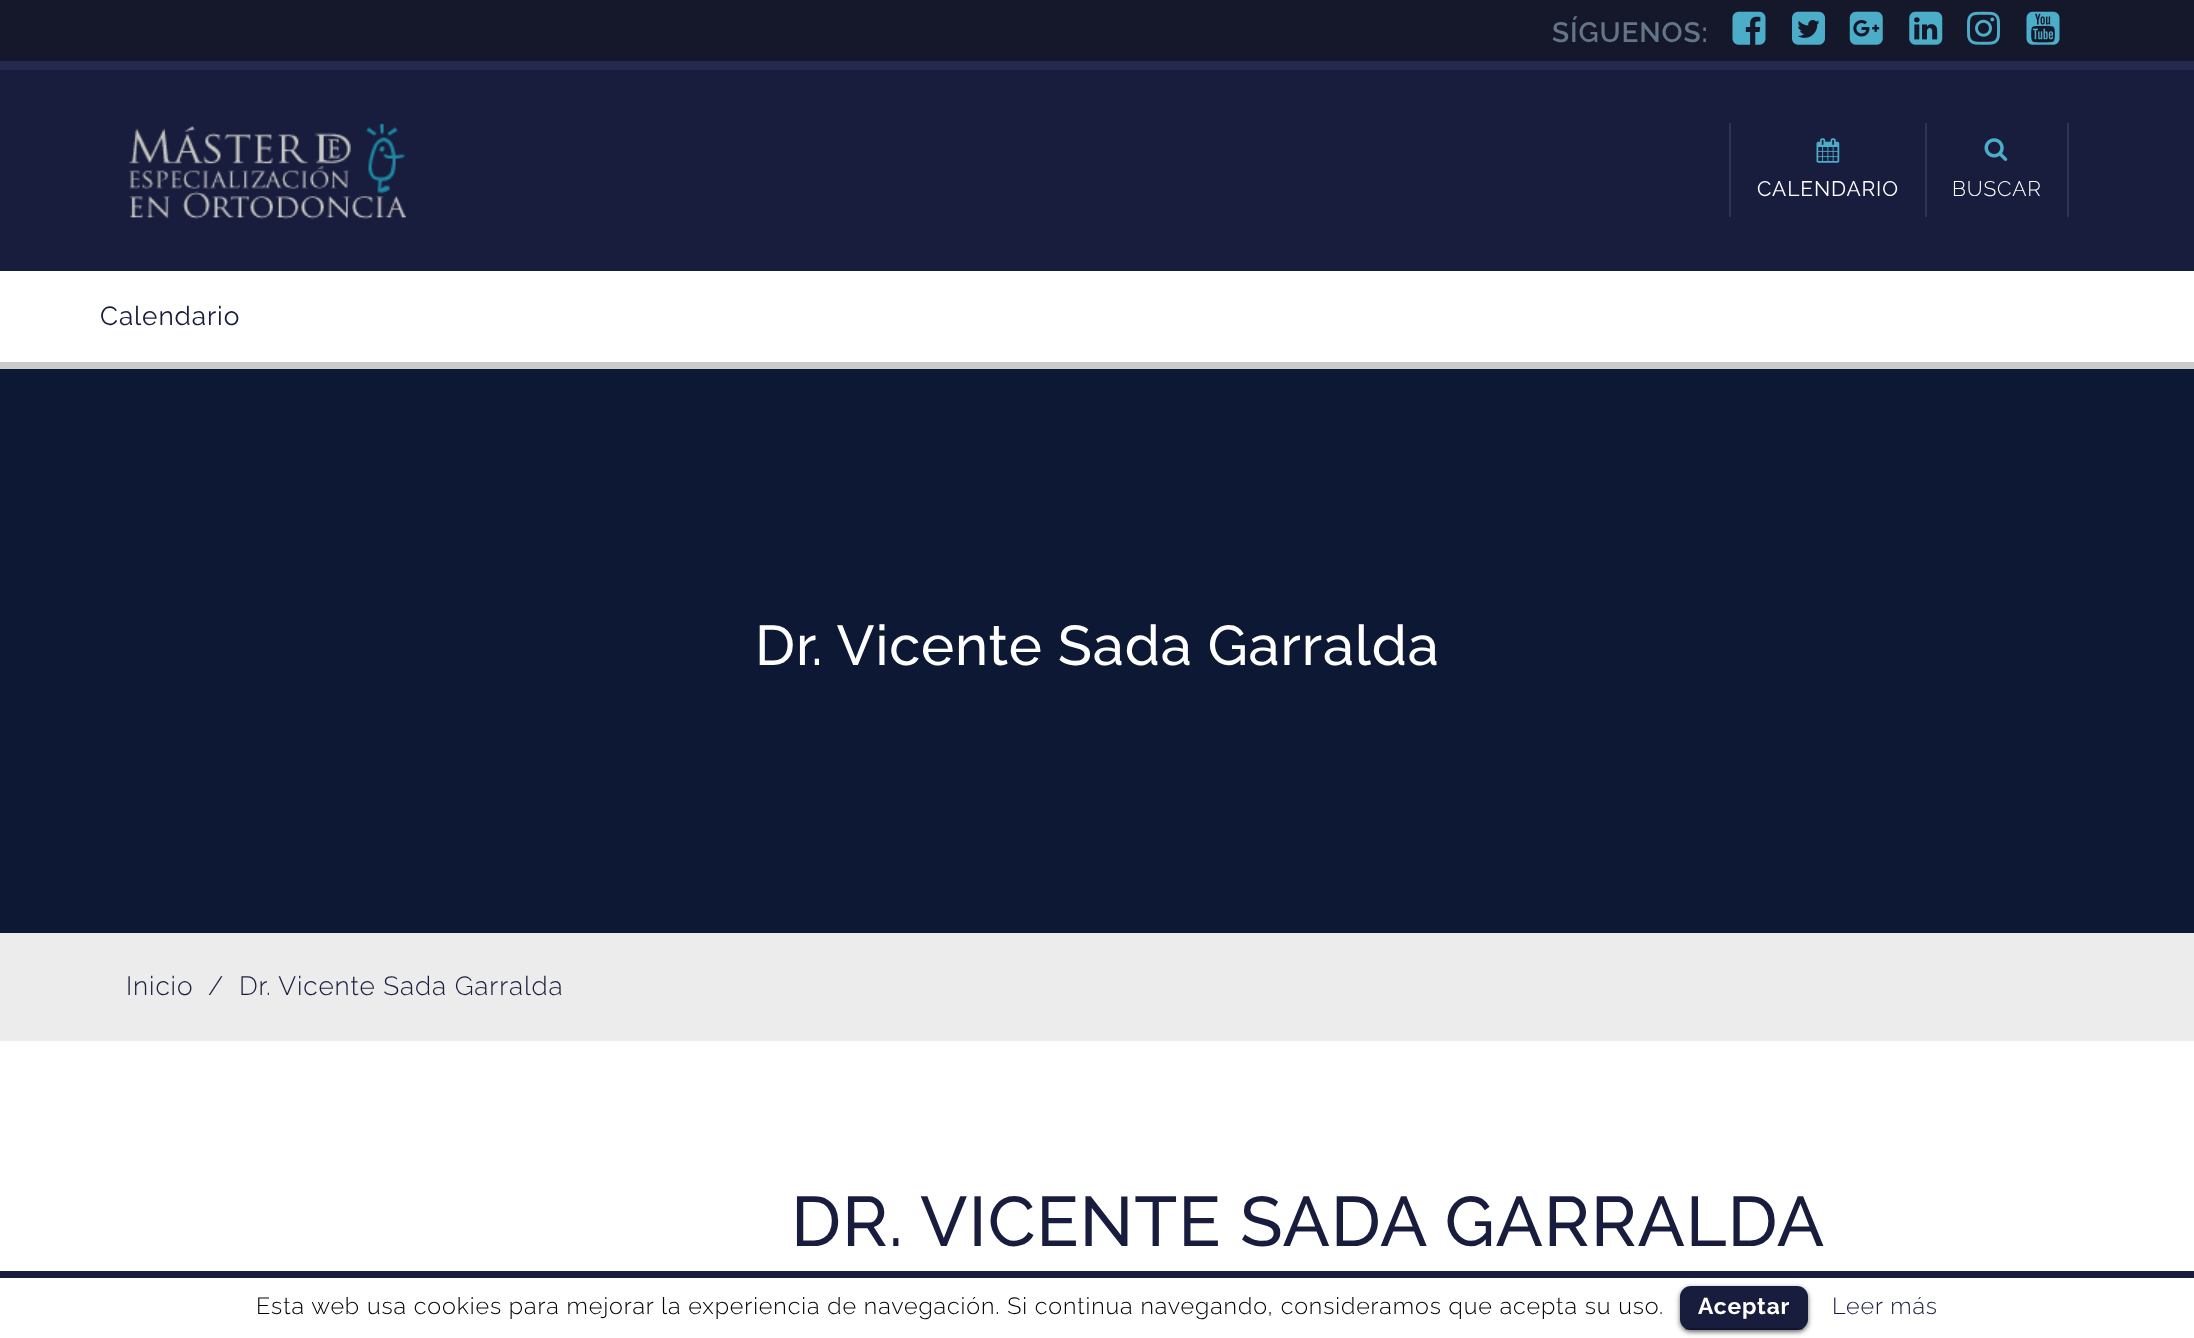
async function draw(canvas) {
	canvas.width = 2194;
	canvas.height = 1338;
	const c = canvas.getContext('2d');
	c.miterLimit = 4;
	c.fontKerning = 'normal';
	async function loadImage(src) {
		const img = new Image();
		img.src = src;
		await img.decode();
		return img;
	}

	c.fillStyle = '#fff';
	c.fillRect(0, 0, 2194, 1338);
	c.fillStyle = '#15172b';
	c.fillRect(0, 0, 2194, 61);
	c.fillStyle = '#252950';
	c.fillRect(0, 61, 2194, 9);
	c.letterSpacing = '0.88px';
	c.font = '600 28px Raleway';
	c.fillStyle = '#637587';
	c.fillText('SÍGUENOS:', 1552, 42);
	c.drawImage(await loadImage('img1.png'), 1732, 11, 34, 34);
	c.drawImage(await loadImage('img2.png'), 1792, 11, 33, 34);
	c.drawImage(await loadImage('img3.png'), 1849, 11, 34, 34);
	c.drawImage(await loadImage('img4.png'), 1909, 11, 34, 34);
	c.drawImage(await loadImage('img5.png'), 1967, 11, 33, 34);
	c.drawImage(await loadImage('img6.png'), 2026, 11, 34, 34);
	c.fillStyle = '#191d3d';
	c.fillRect(0, 70, 2194, 201);
	c.drawImage(await loadImage('img7.png'), 128, 123, 278, 96);
	c.fillStyle = '#303451';
	c.fillRect(1925, 123, 2, 94);
	c.fillRect(1729, 123, 2, 94);
	c.drawImage(await loadImage('img8.png'), 1816, 138, 24, 25);
	c.font = '21px Raleway';
	c.fillStyle = '#fff';
	c.fillText('CALENDARIO', 1757, 196);
	c.fillStyle = '#303451';
	c.fillRect(2067, 123, 2, 94);
	c.drawImage(await loadImage('img9.png'), 1984, 138, 24, 23);
	c.font = '300 21px Raleway';
	c.fillStyle = '#fff';
	c.fillText('BUSCAR', 1952, 196);
	c.fillStyle = '#ccc';
	c.fillRect(0, 362, 2194, 7);
	c.font = '26.25px Raleway';
	c.fillStyle = '#191d3d';
	c.fillText('Calendario', 100, 325);
	c.fillStyle = '#0c1834';
	c.fillRect(0, 369, 2194, 564);
	c.font = '500 56px Raleway';
	c.fillStyle = '#fff';
	c.fillText('Dr. Vicente Sada Garralda', 755, 665);
	c.fillStyle = '#ececec';
	c.fillRect(0, 933, 2194, 108);
	c.font = '300 26.25px Raleway';
	c.fillStyle = '#191d3d';
	for (const [text, x, y] of [
		['Inicio', 126, 995],
		['/', 208, 995],
		['Dr. Vicente Sada Garralda', 239, 995],
	]) {
		c.fillText(text, x, y);
	}
	c.font = '500 70px Raleway';
	c.fillText('DR. VICENTE SADA GARRALDA', 791, 1246);
	c.fillRect(0, 1271, 2194, 7);
	c.font = '300 23.33px Raleway';
	c.fillStyle = '#000';
	c.fillText('Esta web usa cookies para mejorar la experiencia de navegación. Si continua navegando, consideramos que acepta su uso.', 256, 1314);
	c.fillStyle = '#00000099';
	c.filter = 'blur(2.5px)';
	c.beginPath();
	c.roundRect(1680, 1288, 128, 44, 11);
	c.fill();
	c.filter = 'none';
	c.fillStyle = '#191d3d';
	c.beginPath();
	c.roundRect(1680, 1286, 128, 44, 11);
	c.fill();
	c.fillStyle = '#00000040';
	c.fillRect(1685, 1328, 118, 2);
	c.font = 'bold 22.75px Raleway';
	c.fillStyle = '#fff';
	c.fillText('Aceptar', 1698, 1314);
	c.font = '300 23.33px Raleway';
	c.fillStyle = '#191d3d';
	c.fillText('Leer más', 1832, 1314);
}

draw(document.querySelector('canvas'));
